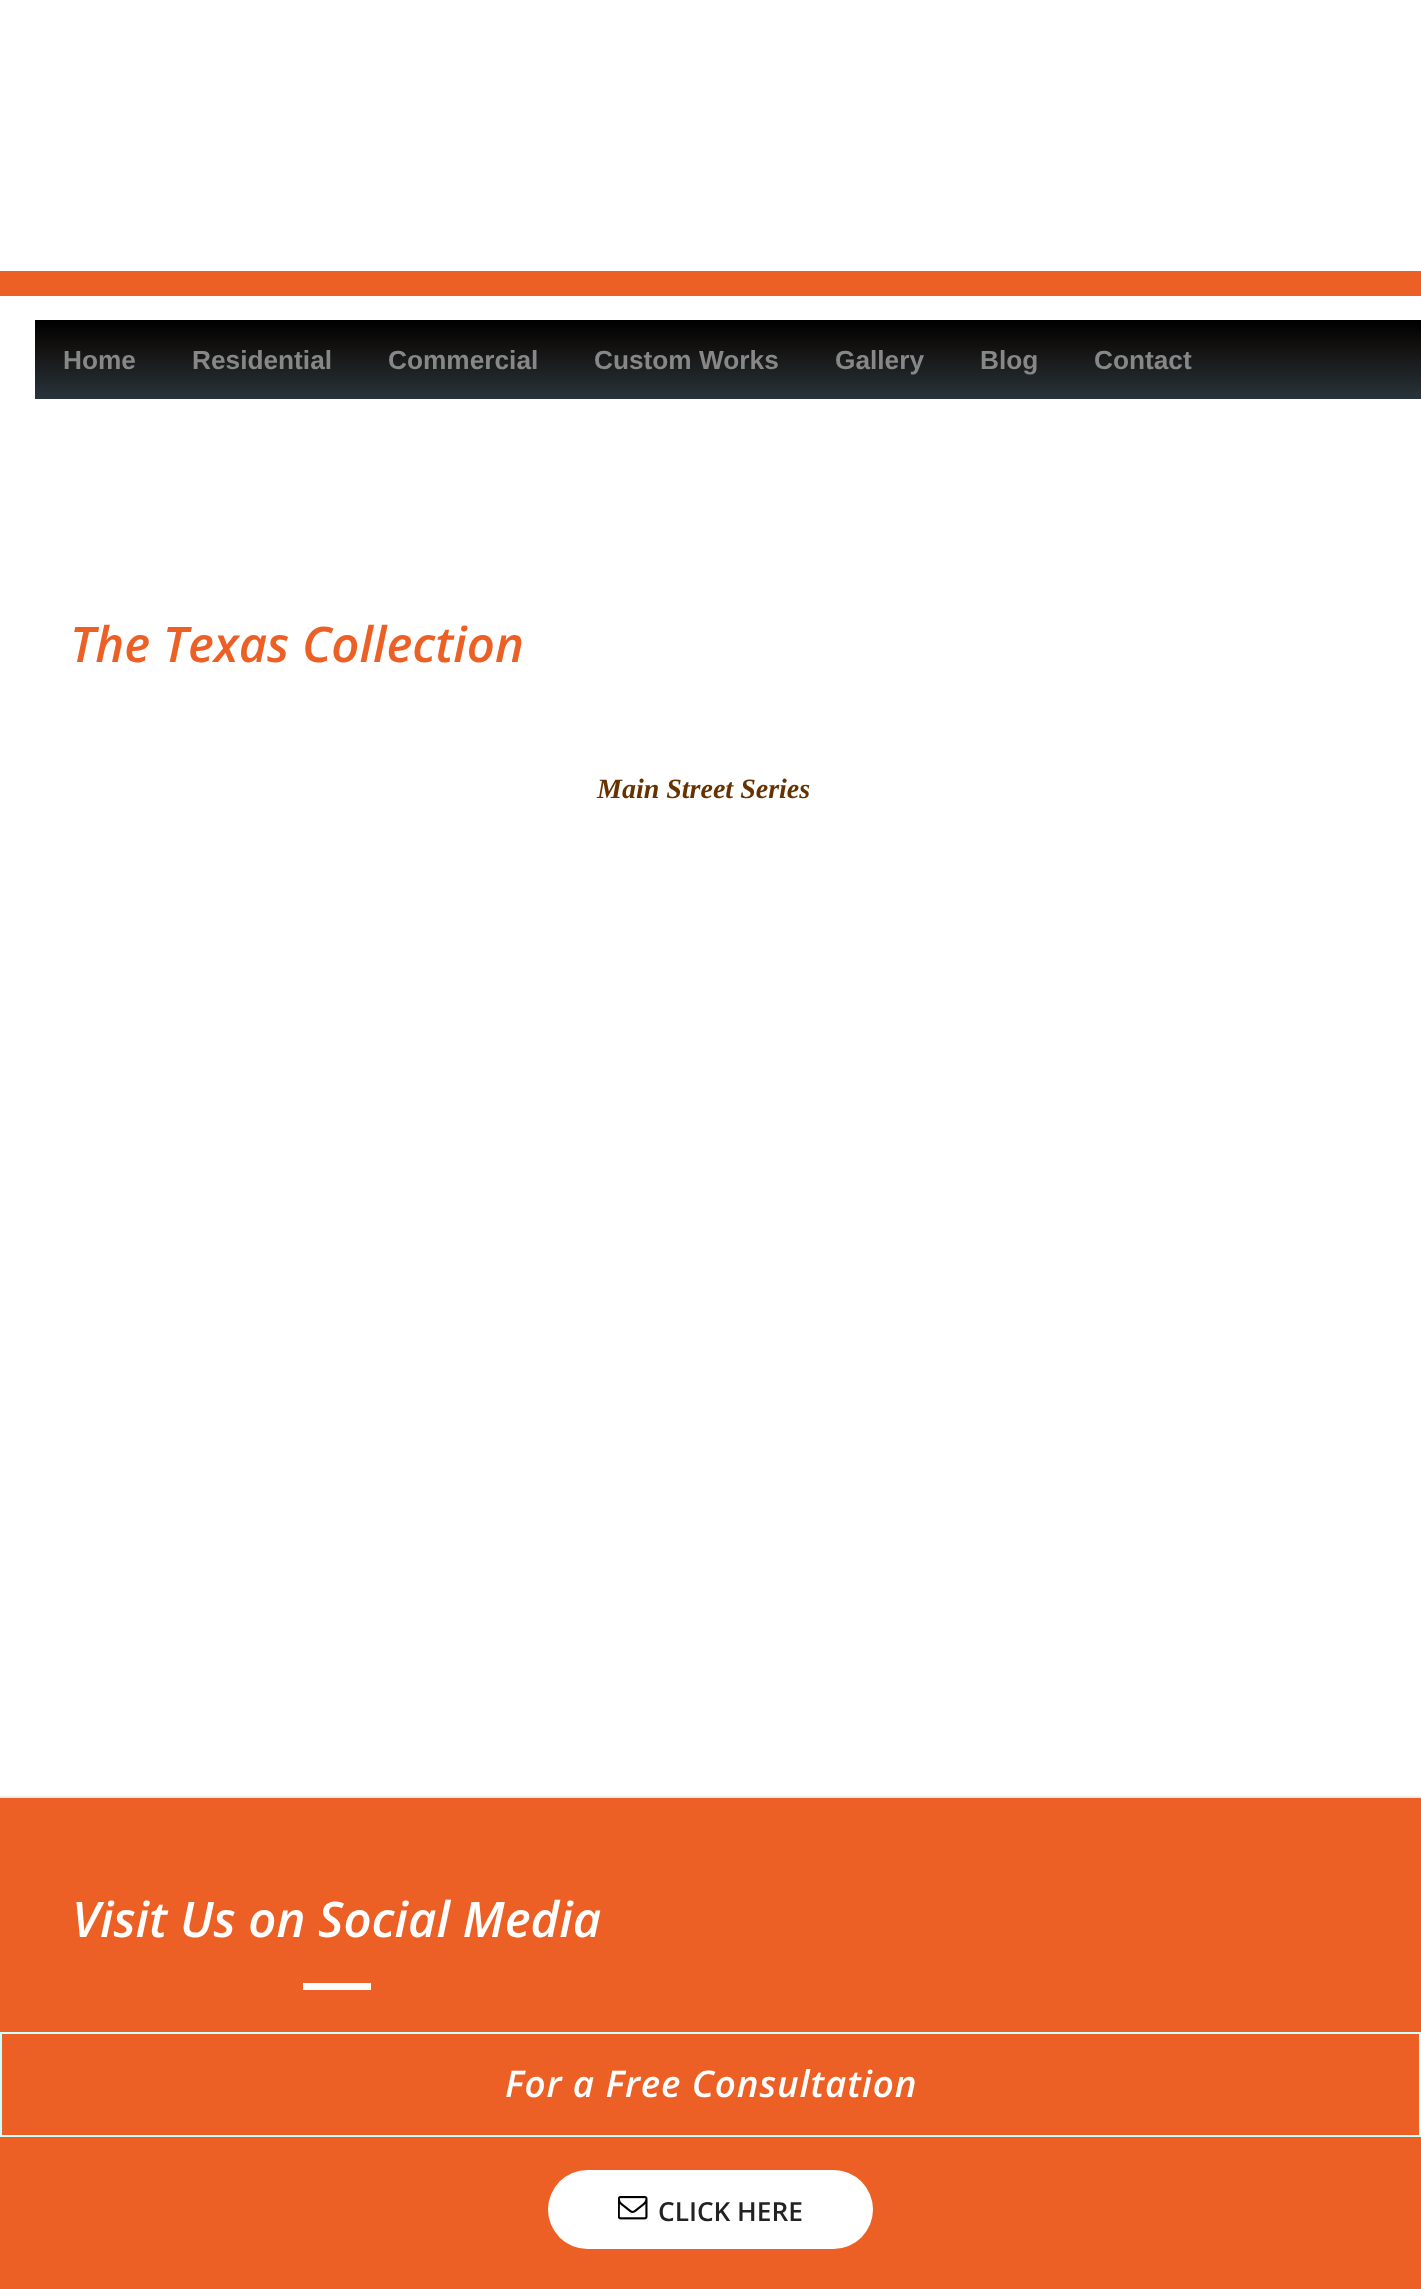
async function draw(canvas) {
	canvas.width = 1421;
	canvas.height = 2289;
	const c = canvas.getContext('2d');
	c.miterLimit = 4;
	c.fontKerning = 'normal';
	async function loadImage(src) {
		const img = new Image();
		img.src = src;
		await img.decode();
		return img;
	}
	let gradient;

	c.fillStyle = '#fff';
	c.fillRect(0, 0, 1421, 2289);
	c.fillStyle = '#ec6025';
	c.fillRect(0, 271, 1421, 25);
	gradient = c.createLinearGradient(1050, 320, 1050, 399);
	gradient.addColorStop(0.02, '#000');
	gradient.addColorStop(0.36, '#141211');
	gradient.addColorStop(1, '#28343b');
	c.fillStyle = gradient;
	c.fillRect(35, 320, 1386, 79);
	c.font = 'bold 26.25px Liberation Sans';
	c.fillStyle = '#878787';
	for (const [text, x, y] of [
		['Home', 63, 369],
		['Residential', 192, 369],
		['Commercial', 388, 369],
		['Custom Works', 594, 369],
		['Gallery', 835, 369],
		['Blog', 980, 369],
		['Contact', 1094, 369],
	]) {
		c.fillText(text, x, y);
	}
	c.font = 'italic 600 49px Open Sans';
	c.fillStyle = '#ec6025';
	c.fillText('The Texas Collection', 70, 662);
	c.font = 'italic bold 28px Liberation Serif';
	c.fillStyle = '#630';
	c.fillText('Main Street Series', 597, 798);
	c.fillStyle = '#ec6025';
	c.fillRect(0, 1798, 1421, 491);
	c.fillStyle = '#eee';
	c.fillRect(0, 1796, 1421, 2);
	c.font = 'italic 600 49px Open Sans';
	c.fillStyle = '#fff';
	c.fillText('Visit Us on Social Media', 72, 1937);
	c.fillRect(303, 1983, 68, 7);
	c.strokeStyle = '#cff';
	c.lineWidth = 2;
	c.strokeRect(1, 2033, 1419, 103);
	c.letterSpacing = '0.9px';
	c.font = 'italic 600 36.75px Open Sans';
	c.fillText('For a Free Consultation', 505, 2097);
	c.beginPath();
	c.roundRect(548, 2170, 325, 79, 39.5);
	c.fill();
	c.drawImage(await loadImage('img1.png'), 618, 2196, 30, 24);
	c.letterSpacing = '0px';
	c.font = '600 26.25px Open Sans';
	c.fillStyle = '#222';
	c.fillText('CLICK HERE', 658, 2221);
}

draw(document.querySelector('canvas'));
